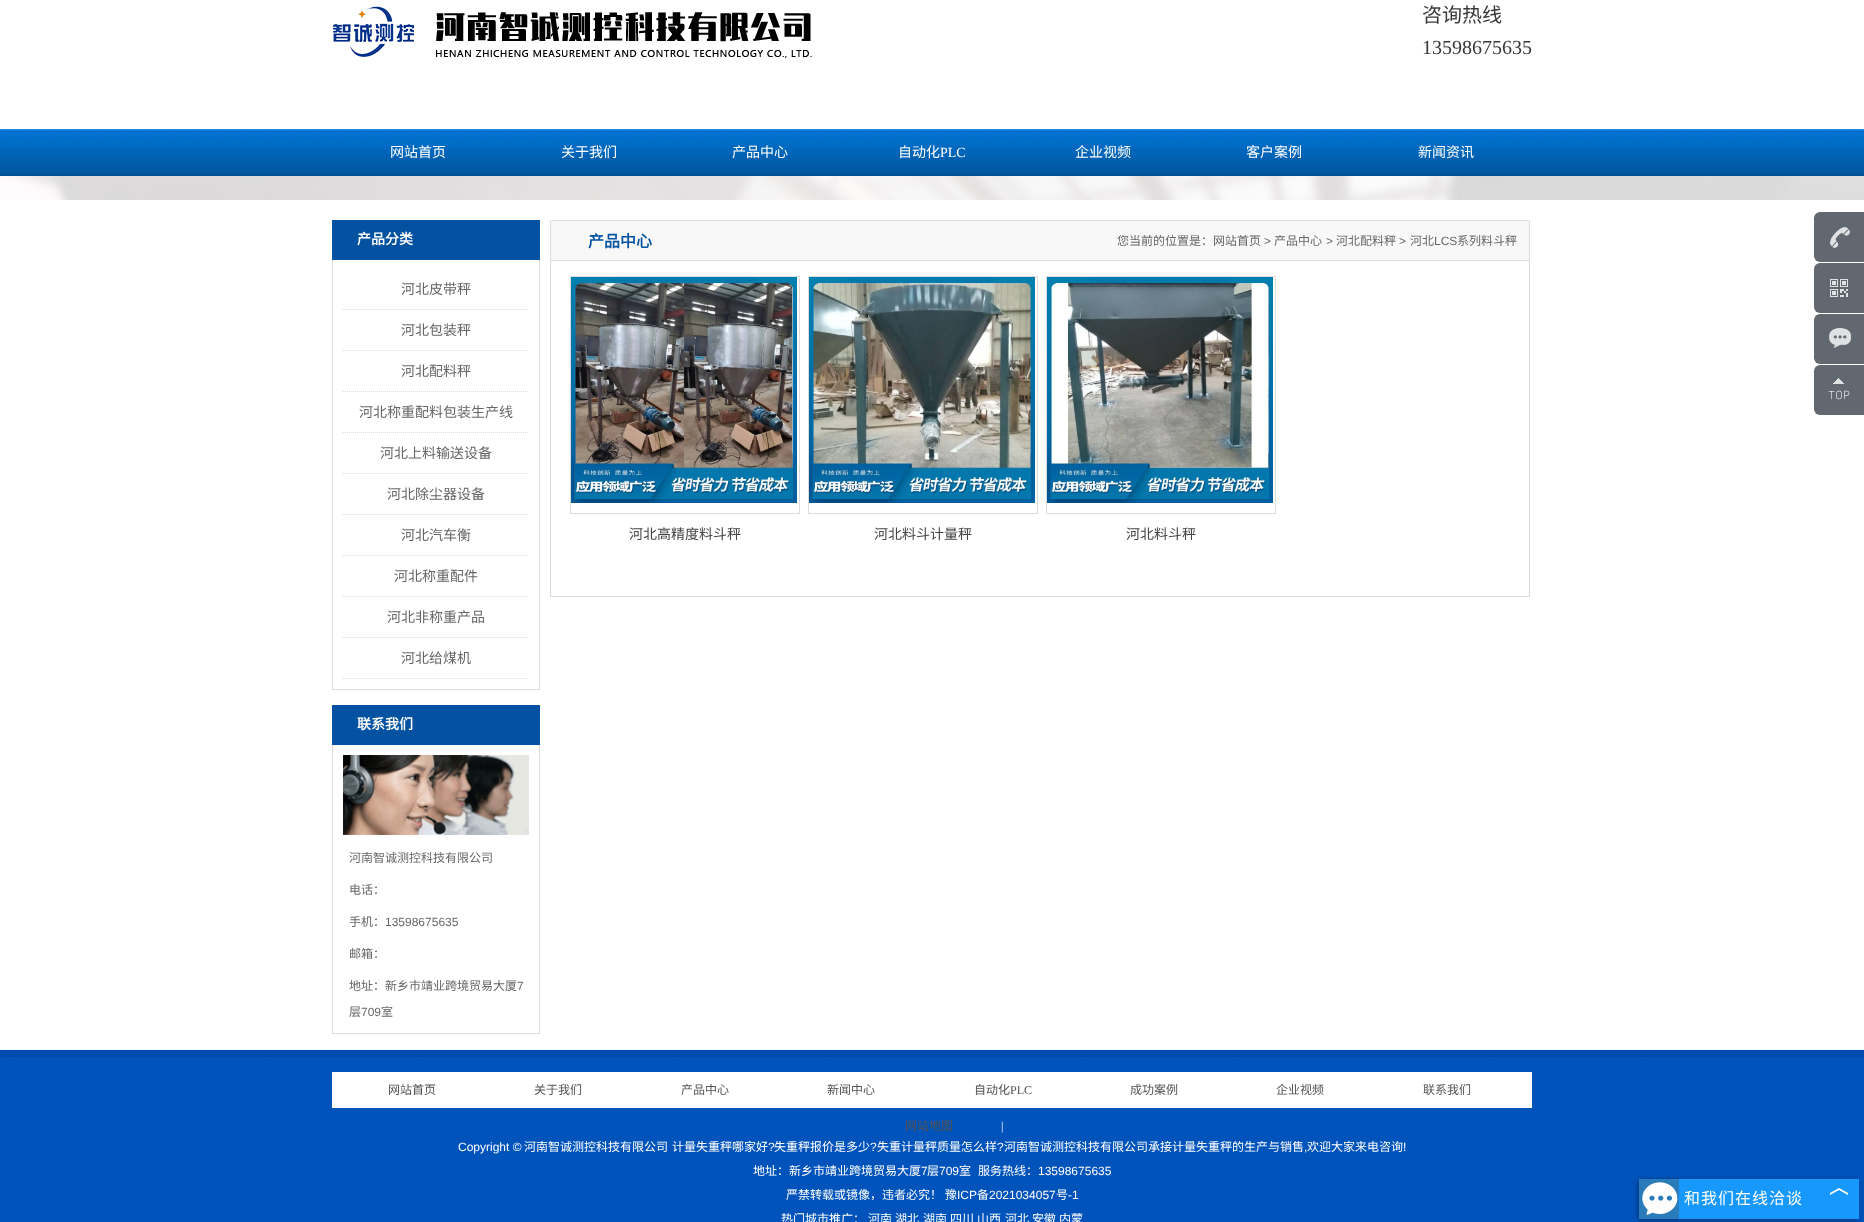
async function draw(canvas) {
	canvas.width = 1864;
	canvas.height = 1222;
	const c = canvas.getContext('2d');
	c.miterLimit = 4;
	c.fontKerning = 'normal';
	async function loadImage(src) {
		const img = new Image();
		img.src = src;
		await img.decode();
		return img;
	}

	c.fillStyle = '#fff';
	c.fillRect(0, 0, 1864, 1222);
	c.drawImage(await loadImage('img1.png'), 0, 129, 1864, 47);
	c.drawImage(await loadImage('img2.png'), 333, 6, 479, 52);
	c.font = '20px Noto Sans CJK SC';
	c.fillStyle = '#383838';
	c.fillText('咨询热线', 1422, 22);
	c.font = '20px Liberation Serif';
	c.fillText('13598675635', 1422, 54);
	c.font = '14px Noto Sans CJK SC';
	c.fillStyle = '#fff';
	for (const [text, x, y] of [
		['网站首页', 390, 157],
		['关于我们', 561, 157],
		['产品中心', 732, 157],
		['自动化', 898, 157],
	]) {
		c.fillText(text, x, y);
	}
	c.font = '14px Liberation Serif';
	c.fillText('PLC', 940, 157);
	c.font = '14px Noto Sans CJK SC';
	for (const [text, x, y] of [
		['企业视频', 1075, 157],
		['客户案例', 1246, 157],
		['新闻资讯', 1418, 157],
	]) {
		c.fillText(text, x, y);
	}
	c.drawImage(await loadImage('img3.png'), 0, 176, 1864, 24);
	c.fillStyle = '#0352a1';
	c.fillRect(332, 220, 208, 40);
	c.font = 'bold 14px Noto Sans CJK SC';
	c.fillStyle = '#fff';
	c.fillText('产品分类', 357, 244);
	for (const [x, y, w, h, color] of [
		[539, 260, 1, 430, '#dcdcdc'],
		[332, 689, 208, 1, '#dcdcdc'],
		[332, 260, 1, 430, '#dcdcdc'],
	]) {
		c.fillStyle = color;
		c.fillRect(x, y, w, h);
	}
	c.beginPath();
	c.moveTo(343, 309.5);
	c.lineTo(529, 309.5);
	c.strokeStyle = '#dcdcdc';
	c.setLineDash([1, 1]);
	c.stroke();
	c.font = '14px Noto Sans CJK SC';
	c.fillStyle = '#666';
	c.fillText('河北皮带秤', 401, 294);
	c.beginPath();
	c.moveTo(343, 350.5);
	c.lineTo(529, 350.5);
	c.stroke();
	c.fillText('河北包装秤', 401, 335);
	c.beginPath();
	c.moveTo(343, 391.5);
	c.lineTo(529, 391.5);
	c.stroke();
	c.fillText('河北配料秤', 401, 376);
	c.beginPath();
	c.moveTo(343, 432.5);
	c.lineTo(529, 432.5);
	c.stroke();
	c.fillText('河北称重配料包装生产线', 359, 417);
	c.beginPath();
	c.moveTo(343, 473.5);
	c.lineTo(529, 473.5);
	c.stroke();
	c.fillText('河北上料输送设备', 380, 458);
	c.beginPath();
	c.moveTo(343, 514.5);
	c.lineTo(529, 514.5);
	c.stroke();
	c.fillText('河北除尘器设备', 387, 499);
	c.beginPath();
	c.moveTo(343, 555.5);
	c.lineTo(529, 555.5);
	c.stroke();
	c.fillText('河北汽车衡', 401, 540);
	c.beginPath();
	c.moveTo(343, 596.5);
	c.lineTo(529, 596.5);
	c.stroke();
	c.fillText('河北称重配件', 394, 581);
	c.beginPath();
	c.moveTo(343, 637.5);
	c.lineTo(529, 637.5);
	c.stroke();
	c.fillText('河北非称重产品', 387, 622);
	c.beginPath();
	c.moveTo(343, 678.5);
	c.lineTo(529, 678.5);
	c.stroke();
	c.fillText('河北给煤机', 401, 663);
	c.fillStyle = '#0352a1';
	c.fillRect(332, 705, 208, 40);
	c.font = 'bold 14px Noto Sans CJK SC';
	c.fillStyle = '#fff';
	c.fillText('联系我们', 357, 729);
	for (const [x, y, w, h, color] of [
		[539, 745, 1, 289, '#dcdcdc'],
		[332, 1033, 208, 1, '#dcdcdc'],
		[332, 745, 1, 289, '#dcdcdc'],
	]) {
		c.fillStyle = color;
		c.fillRect(x, y, w, h);
	}
	c.drawImage(await loadImage('img4.png'), 343, 755, 186, 80);
	c.font = '12px Noto Sans CJK SC';
	c.fillStyle = '#666';
	for (const [text, x, y] of [
		['河南智诚测控科技有限公司', 349, 862],
		['电话：', 349, 894],
		['手机：', 349, 926],
	]) {
		c.fillText(text, x, y);
	}
	c.font = '12px Liberation Sans';
	c.fillText('13598675635', 385, 926);
	c.font = '12px Noto Sans CJK SC';
	c.fillText('邮箱：', 349, 958);
	c.fillText('地址：新乡市靖业跨境贸易大厦', 349, 990);
	c.font = '12px Liberation Sans';
	c.fillText('7', 517, 990);
	c.font = '12px Noto Sans CJK SC';
	c.fillText('层', 349, 1016);
	c.font = '12px Liberation Sans';
	c.fillText('709', 361, 1016);
	c.font = '12px Noto Sans CJK SC';
	c.fillText('室', 381, 1016);
	c.fillStyle = '#f8f8f8';
	c.beginPath();
	c.rect(550.5, 220.5, 979, 40);
	c.fill();
	c.strokeStyle = '#ddd';
	c.setLineDash([]);
	c.stroke();
	c.font = 'bold 16px Noto Sans CJK SC';
	c.fillStyle = '#0352a1';
	c.fillText('产品中心', 588, 247);
	c.font = '12px Noto Sans CJK SC';
	c.fillStyle = '#666';
	c.fillText('您当前的位置是：网站首页', 1117, 245);
	c.font = '12px Liberation Sans';
	c.fillText('>', 1264, 245);
	c.font = '12px Noto Sans CJK SC';
	c.fillText('产品中心', 1274, 245);
	c.font = '12px Liberation Sans';
	c.fillText('>', 1326, 245);
	c.font = '12px Noto Sans CJK SC';
	c.fillText('河北配料秤', 1336, 245);
	c.font = '12px Liberation Sans';
	c.fillText('>', 1399, 245);
	c.font = '12px Noto Sans CJK SC';
	c.fillText('河北', 1410, 245);
	c.font = '12px Liberation Sans';
	c.fillText('LCS', 1434, 245);
	c.font = '12px Noto Sans CJK SC';
	c.fillText('系列料斗秤', 1457, 245);
	for (const [x, y, w, h, color] of [
		[1529, 261, 1, 336, '#dcdcdc'],
		[550, 596, 980, 1, '#dcdcdc'],
		[550, 261, 1, 336, '#dcdcdc'],
	]) {
		c.fillStyle = color;
		c.fillRect(x, y, w, h);
	}
	c.strokeStyle = '#dcdcdc';
	c.strokeRect(570.5, 276.5, 229, 237);
	c.drawImage(await loadImage('img5.png'), 571, 277, 226, 226);
	c.font = '14px Noto Sans CJK SC';
	c.fillStyle = '#444';
	c.fillText('河北高精度料斗秤', 629, 539);
	c.strokeRect(808.5, 276.5, 229, 237);
	c.drawImage(await loadImage('img6.png'), 809, 277, 226, 226);
	c.fillText('河北料斗计量秤', 874, 539);
	c.strokeRect(1046.5, 276.5, 229, 237);
	c.drawImage(await loadImage('img7.png'), 1047, 277, 226, 226);
	c.fillText('河北料斗秤', 1126, 539);
	c.fillStyle = '#61686f';
	c.beginPath();
	c.roundRect(1814, 212, 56, 50, 6);
	c.fill();
	c.drawImage(await loadImage('img8.png'), 1830, 227, 20, 21);
	c.beginPath();
	c.roundRect(1814, 263, 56, 50, 6);
	c.fill();
	c.drawImage(await loadImage('img9.png'), 1830, 279, 18, 18);
	c.beginPath();
	c.roundRect(1814, 314, 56, 50, 6);
	c.fill();
	c.drawImage(await loadImage('img10.png'), 1829, 328, 22, 20);
	c.beginPath();
	c.roundRect(1814, 365, 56, 50, 6);
	c.fill();
	c.drawImage(await loadImage('img11.png'), 1828, 378, 22, 22);
	c.drawImage(await loadImage('img12.png'), 0, 1050, 1864, 172);
	c.fillStyle = '#fff';
	c.fillRect(332, 1072, 1200, 36);
	c.font = '12px Noto Sans CJK SC';
	c.fillStyle = '#525252';
	for (const [text, x, y] of [
		['网站首页', 388, 1094],
		['关于我们', 534, 1094],
		['产品中心', 681, 1094],
		['新闻中心', 827, 1094],
		['自动化', 974, 1094],
	]) {
		c.fillText(text, x, y);
	}
	c.font = '12px Liberation Serif';
	c.fillText('PLC', 1010, 1094);
	c.font = '12px Noto Sans CJK SC';
	for (const [text, x, y] of [
		['成功案例', 1130, 1094],
		['企业视频', 1276, 1094],
		['联系我们', 1423, 1094],
		['网站地图', 905, 1130],
	]) {
		c.fillText(text, x, y);
	}
	c.font = '12px Liberation Serif';
	c.fillStyle = '#fff';
	c.fillText('|', 1001, 1130);
	c.font = '12px Liberation Sans';
	c.fillText('Copyright ©', 458, 1151);
	c.font = '12px Noto Sans CJK SC';
	c.fillText('河南智诚测控科技有限公司', 524, 1151);
	c.fillText('计量失重秤哪家好', 672, 1151);
	c.font = '12px Liberation Sans';
	c.fillText('?', 768, 1151);
	c.font = '12px Noto Sans CJK SC';
	c.fillText('失重秤报价是多少', 774, 1151);
	c.font = '12px Liberation Sans';
	c.fillText('?', 870, 1151);
	c.font = '12px Noto Sans CJK SC';
	c.fillText('失重计量秤质量怎么样', 877, 1151);
	c.font = '12px Liberation Sans';
	c.fillText('?', 997, 1151);
	c.font = '12px Noto Sans CJK SC';
	c.fillText('河南智诚测控科技有限公司承接计量失重秤的生产与销售', 1004, 1151);
	c.font = '12px Liberation Sans';
	c.fillText(',', 1304, 1151);
	c.font = '12px Noto Sans CJK SC';
	c.fillText('欢迎大家来电咨询', 1307, 1151);
	c.font = '12px Liberation Sans';
	c.fillText('!', 1403, 1151);
	c.font = '12px Noto Sans CJK SC';
	c.fillText('地址：新乡市靖业跨境贸易大厦', 753, 1175);
	c.font = '12px Liberation Sans';
	c.fillText('7', 921, 1175);
	c.font = '12px Noto Sans CJK SC';
	c.fillText('层', 927, 1175);
	c.font = '12px Liberation Sans';
	c.fillText('709', 939, 1175);
	c.font = '12px Noto Sans CJK SC';
	c.fillText('室', 959, 1175);
	c.fillText('服务热线：', 978, 1175);
	c.font = '12px Liberation Sans';
	c.fillText('13598675635', 1038, 1175);
	c.font = '12px Noto Sans CJK SC';
	c.fillText('严禁转载或镜像，违者必究！', 786, 1199);
	c.fillText('豫', 945, 1199);
	c.font = '12px Liberation Sans';
	c.fillText('ICP', 957, 1199);
	c.font = '12px Noto Sans CJK SC';
	c.fillText('备', 977, 1199);
	c.font = '12px Liberation Sans';
	c.fillText('2021034057', 989, 1199);
	c.font = '12px Noto Sans CJK SC';
	c.fillText('号', 1056, 1199);
	c.font = '12px Liberation Sans';
	c.fillText('-1', 1068, 1199);
	c.font = '12px Noto Sans CJK SC';
	for (const [text, x, y] of [
		['热门城市推广：', 781, 1223],
		['河南', 868, 1223],
		['湖北', 895, 1223],
		['湖南', 923, 1223],
		['四川', 950, 1223],
		['山西', 977, 1223],
		['河北', 1005, 1223],
		['安徽', 1032, 1223],
		['内蒙', 1059, 1223],
	]) {
		c.fillText(text, x, y);
	}
	c.fillStyle = '#00000066';
	c.filter = 'blur(2.5px)';
	c.beginPath();
	c.roundRect(1638, 1180, 220, 40, 4);
	c.fill();
	c.filter = 'none';
	c.fillStyle = '#1798fc';
	c.fillRect(1679, 1179, 180, 40);
	c.fillStyle = '#2a7bb9';
	c.fillRect(1639, 1179, 40, 40);
	c.drawImage(await loadImage('img13.png'), 1642, 1182, 36, 33);
	c.letterSpacing = '1px';
	c.font = '16px Noto Sans CJK SC';
	c.fillStyle = '#fff';
	c.fillText('和我们在线洽谈', 1684, 1204);
	c.drawImage(await loadImage('img14.png'), 1830, 1188, 18, 7);
}

draw(document.querySelector('canvas'));
